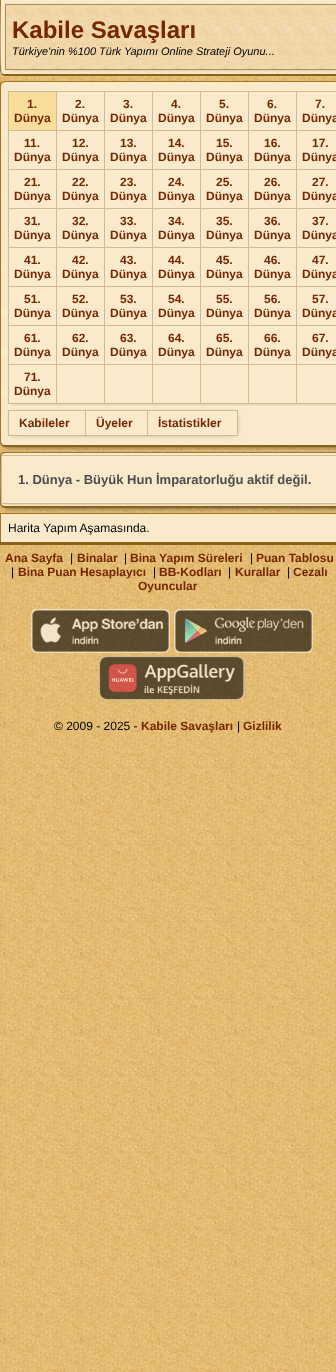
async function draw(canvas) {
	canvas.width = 336;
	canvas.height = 1372;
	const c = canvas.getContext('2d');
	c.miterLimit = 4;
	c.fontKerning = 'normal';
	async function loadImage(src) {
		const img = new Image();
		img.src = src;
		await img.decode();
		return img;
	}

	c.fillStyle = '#fff';
	c.fillRect(0, 0, 336, 1372);
	c.drawImage(await loadImage('img1.png'), 0, 71, 336, 1301);
	c.fillStyle = '#faeacb';
	c.beginPath();
	c.moveTo(0, 0);
	c.lineTo(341, 0);
	c.lineTo(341, 71);
	c.bezierCurveTo(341, 74, 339, 76, 336, 76);
	c.lineTo(5, 76);
	c.bezierCurveTo(2, 76, 0, 74, 0, 71);
	c.closePath();
	c.fill();
	c.fillStyle = '#8a6319';
	c.beginPath();
	c.moveTo(5, 76);
	c.lineTo(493, 76);
	c.bezierCurveTo(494, 76, 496, 76, 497, 75);
	c.lineTo(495, 73);
	c.lineTo(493, 74);
	c.lineTo(5, 74);
	c.bezierCurveTo(4, 74, 2, 74, 2, 73);
	c.lineTo(1, 74);
	c.bezierCurveTo(2, 75, 3, 76, 5, 76);
	c.closePath();
	c.fill();
	c.fillStyle = '#a5761f';
	c.beginPath();
	c.moveTo(0, 0);
	c.lineTo(1, 0);
	c.bezierCurveTo(1, 8, 0, 71, 2, 73);
	c.lineTo(1, 74);
	c.lineTo(0, 71);
	c.closePath();
	c.fill();
	c.fillStyle = '#00000099';
	c.filter = 'blur(3px)';
	c.beginPath();
	c.rect(10, 9, 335, 58);
	c.fill();
	c.filter = 'none';
	for (const [x, y, w, h, color] of [
		[5, 4, 331, 1, '#a68f5b'],
		[5, 69, 331, 1, '#a68f5b'],
		[5, 4, 1, 66, '#a68f5b'],
	]) {
		c.fillStyle = color;
		c.fillRect(x, y, w, h);
	}
	c.drawImage(await loadImage('img2.png'), 6, 5, 330, 64);
	c.font = 'bold 24px Liberation Sans';
	c.fillStyle = '#752700';
	c.fillText('Kabile Savaşları', 12, 38);
	c.font = 'italic 11px Liberation Sans';
	c.fillStyle = '#000';
	c.fillText('Türkiye\'nin %100 Türk Yapımı Online Strateji Oyunu...', 12, 55);
	c.fillStyle = '#222';
	c.filter = 'blur(3px)';
	c.beginPath();
	c.roundRect(6, 88, 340, 358, 1);
	c.fill();
	c.filter = 'none';
	c.fillStyle = '#faeacb';
	c.beginPath();
	c.moveTo(5, 82);
	c.lineTo(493, 82);
	c.bezierCurveTo(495, 82, 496, 84, 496, 86);
	c.lineTo(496, 442);
	c.bezierCurveTo(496, 444, 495, 445, 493, 445);
	c.lineTo(5, 445);
	c.bezierCurveTo(3, 445, 1, 444, 1, 442);
	c.lineTo(1, 86);
	c.bezierCurveTo(1, 84, 3, 82, 5, 82);
	c.closePath();
	c.fill();
	c.fillStyle = '#a5761f';
	c.beginPath();
	c.moveTo(5, 81);
	c.bezierCurveTo(4, 81, 2, 82, 1, 82);
	c.lineTo(2, 83);
	c.lineTo(5, 82);
	c.lineTo(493, 82);
	c.lineTo(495, 83);
	c.lineTo(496, 82);
	c.lineTo(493, 81);
	c.closePath();
	c.fill();
	c.fillStyle = '#8a6319';
	c.beginPath();
	c.moveTo(5, 447);
	c.lineTo(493, 447);
	c.bezierCurveTo(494, 447, 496, 446, 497, 446);
	c.lineTo(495, 444);
	c.lineTo(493, 445);
	c.lineTo(5, 445);
	c.bezierCurveTo(4, 445, 2, 445, 2, 444);
	c.lineTo(1, 445);
	c.bezierCurveTo(2, 446, 3, 447, 5, 447);
	c.closePath();
	c.fill();
	c.fillStyle = '#a5761f';
	c.beginPath();
	c.moveTo(0, 86);
	c.lineTo(0, 442);
	c.bezierCurveTo(0, 443, 0, 444, 1, 445);
	c.lineTo(2, 444);
	c.lineTo(1, 442);
	c.lineTo(1, 86);
	c.lineTo(2, 83);
	c.lineTo(1, 82);
	c.bezierCurveTo(0, 83, 0, 84, 0, 86);
	c.closePath();
	c.fill();
	c.save();
	c.beginPath();
	c.rect(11, 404, 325, 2);
	c.clip();
	c.fillStyle = '#00000099';
	c.filter = 'blur(3px)';
	c.beginPath();
	c.rect(13, 96, 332, 305);
	c.fill();
	c.filter = 'none';
	c.restore();
	for (const [x, y, w, h, color] of [
		[9, 92, 47, 38, '#fadc9b'],
		[296, 91, 40, 1, '#cabd95'],
		[296, 130, 40, 1, '#cabd95'],
		[296, 169, 40, 1, '#cabd95'],
		[296, 208, 40, 1, '#cabd95'],
		[296, 247, 40, 1, '#cabd95'],
		[296, 286, 40, 1, '#cabd95'],
		[296, 325, 40, 1, '#cabd95'],
		[296, 364, 40, 1, '#cabd95'],
		[296, 403, 40, 1, '#cabd95'],
		[296, 364, 1, 40, '#cabd95'],
		[248, 364, 49, 1, '#cabd95'],
		[296, 325, 1, 40, '#cabd95'],
		[248, 325, 49, 1, '#cabd95'],
		[296, 286, 1, 40, '#cabd95'],
		[248, 286, 49, 1, '#cabd95'],
		[296, 247, 1, 40, '#cabd95'],
		[248, 247, 49, 1, '#cabd95'],
		[296, 208, 1, 40, '#cabd95'],
		[248, 208, 49, 1, '#cabd95'],
		[296, 169, 1, 40, '#cabd95'],
		[248, 169, 49, 1, '#cabd95'],
		[296, 130, 1, 40, '#cabd95'],
		[248, 130, 49, 1, '#cabd95'],
		[296, 91, 1, 40, '#cabd95'],
		[248, 91, 49, 1, '#cabd95'],
		[248, 403, 49, 1, '#cabd95'],
		[248, 364, 1, 40, '#cabd95'],
		[200, 364, 49, 1, '#cabd95'],
		[248, 325, 1, 40, '#cabd95'],
		[200, 325, 49, 1, '#cabd95'],
		[248, 286, 1, 40, '#cabd95'],
		[200, 286, 49, 1, '#cabd95'],
		[248, 247, 1, 40, '#cabd95'],
		[200, 247, 49, 1, '#cabd95'],
		[248, 208, 1, 40, '#cabd95'],
		[200, 208, 49, 1, '#cabd95'],
		[248, 169, 1, 40, '#cabd95'],
		[200, 169, 49, 1, '#cabd95'],
		[248, 130, 1, 40, '#cabd95'],
		[200, 130, 49, 1, '#cabd95'],
		[248, 91, 1, 40, '#cabd95'],
		[200, 91, 49, 1, '#cabd95'],
		[200, 403, 49, 1, '#cabd95'],
		[200, 364, 1, 40, '#cabd95'],
		[152, 364, 49, 1, '#cabd95'],
		[200, 325, 1, 40, '#cabd95'],
		[152, 325, 49, 1, '#cabd95'],
		[200, 286, 1, 40, '#cabd95'],
		[152, 286, 49, 1, '#cabd95'],
		[200, 247, 1, 40, '#cabd95'],
		[152, 247, 49, 1, '#cabd95'],
		[200, 208, 1, 40, '#cabd95'],
		[152, 208, 49, 1, '#cabd95'],
		[200, 169, 1, 40, '#cabd95'],
		[152, 169, 49, 1, '#cabd95'],
		[200, 130, 1, 40, '#cabd95'],
		[152, 130, 49, 1, '#cabd95'],
		[200, 91, 1, 40, '#cabd95'],
		[152, 91, 49, 1, '#cabd95'],
		[152, 403, 49, 1, '#cabd95'],
		[152, 364, 1, 40, '#cabd95'],
		[104, 364, 49, 1, '#cabd95'],
		[152, 325, 1, 40, '#cabd95'],
		[104, 325, 49, 1, '#cabd95'],
		[152, 286, 1, 40, '#cabd95'],
		[104, 286, 49, 1, '#cabd95'],
		[152, 247, 1, 40, '#cabd95'],
		[104, 247, 49, 1, '#cabd95'],
		[152, 208, 1, 40, '#cabd95'],
		[104, 208, 49, 1, '#cabd95'],
		[152, 169, 1, 40, '#cabd95'],
		[104, 169, 49, 1, '#cabd95'],
		[152, 130, 1, 40, '#cabd95'],
		[104, 130, 49, 1, '#cabd95'],
		[152, 91, 1, 40, '#cabd95'],
		[104, 91, 49, 1, '#cabd95'],
		[104, 403, 49, 1, '#cabd95'],
		[104, 364, 1, 40, '#cabd95'],
		[56, 364, 49, 1, '#cabd95'],
		[104, 325, 1, 40, '#cabd95'],
		[56, 325, 49, 1, '#cabd95'],
		[104, 286, 1, 40, '#cabd95'],
		[56, 286, 49, 1, '#cabd95'],
		[104, 247, 1, 40, '#cabd95'],
		[56, 247, 49, 1, '#cabd95'],
		[104, 208, 1, 40, '#cabd95'],
		[56, 208, 49, 1, '#cabd95'],
		[104, 169, 1, 40, '#cabd95'],
		[56, 169, 49, 1, '#cabd95'],
		[104, 130, 1, 40, '#cabd95'],
		[56, 130, 49, 1, '#cabd95'],
		[104, 91, 1, 40, '#cabd95'],
		[56, 91, 49, 1, '#cabd95'],
		[56, 403, 49, 1, '#cabd95'],
		[56, 364, 1, 40, '#cabd95'],
		[8, 364, 49, 1, '#cabd95'],
		[56, 325, 1, 40, '#cabd95'],
		[8, 325, 49, 1, '#cabd95'],
		[56, 286, 1, 40, '#cabd95'],
		[8, 286, 49, 1, '#cabd95'],
		[56, 247, 1, 40, '#cabd95'],
		[8, 247, 49, 1, '#cabd95'],
		[56, 208, 1, 40, '#cabd95'],
		[8, 208, 49, 1, '#cabd95'],
		[56, 169, 1, 40, '#cabd95'],
		[8, 169, 49, 1, '#cabd95'],
		[56, 130, 1, 40, '#cabd95'],
		[8, 130, 49, 1, '#cabd95'],
		[56, 91, 1, 40, '#cabd95'],
		[8, 91, 49, 1, '#cabd95'],
		[8, 403, 49, 1, '#cabd95'],
		[8, 364, 1, 40, '#cabd95'],
		[8, 325, 1, 40, '#cabd95'],
		[8, 286, 1, 40, '#cabd95'],
		[8, 247, 1, 40, '#cabd95'],
		[8, 208, 1, 40, '#cabd95'],
		[8, 169, 1, 40, '#cabd95'],
		[8, 130, 1, 40, '#cabd95'],
		[8, 91, 1, 40, '#cabd95'],
	]) {
		c.fillStyle = color;
		c.fillRect(x, y, w, h);
	}
	c.font = 'bold 12px Liberation Sans';
	c.fillStyle = '#752700';
	for (const [text, x, y] of [
		['1.', 27, 108],
		['Dünya', 14, 122],
		['2.', 75, 108],
		['Dünya', 62, 122],
		['3.', 123, 108],
		['Dünya', 110, 122],
		['4.', 171, 108],
		['Dünya', 158, 122],
		['5.', 219, 108],
		['Dünya', 206, 122],
		['6.', 267, 108],
		['Dünya', 254, 122],
		['7.', 315, 108],
		['Dünya', 302, 122],
		['11.', 24, 147],
		['Dünya', 14, 161],
		['12.', 72, 147],
		['Dünya', 62, 161],
		['13.', 120, 147],
		['Dünya', 110, 161],
		['14.', 168, 147],
		['Dünya', 158, 161],
		['15.', 216, 147],
		['Dünya', 206, 161],
		['16.', 264, 147],
		['Dünya', 254, 161],
		['17.', 312, 147],
		['Dünya', 302, 161],
		['21.', 24, 186],
		['Dünya', 14, 200],
		['22.', 72, 186],
		['Dünya', 62, 200],
		['23.', 120, 186],
		['Dünya', 110, 200],
		['24.', 168, 186],
		['Dünya', 158, 200],
		['25.', 216, 186],
		['Dünya', 206, 200],
		['26.', 264, 186],
		['Dünya', 254, 200],
		['27.', 312, 186],
		['Dünya', 302, 200],
		['31.', 24, 225],
		['Dünya', 14, 239],
		['32.', 72, 225],
		['Dünya', 62, 239],
		['33.', 120, 225],
		['Dünya', 110, 239],
		['34.', 168, 225],
		['Dünya', 158, 239],
		['35.', 216, 225],
		['Dünya', 206, 239],
		['36.', 264, 225],
		['Dünya', 254, 239],
		['37.', 312, 225],
		['Dünya', 302, 239],
		['41.', 24, 264],
		['Dünya', 14, 278],
		['42.', 72, 264],
		['Dünya', 62, 278],
		['43.', 120, 264],
		['Dünya', 110, 278],
		['44.', 168, 264],
		['Dünya', 158, 278],
		['45.', 216, 264],
		['Dünya', 206, 278],
		['46.', 264, 264],
		['Dünya', 254, 278],
		['47.', 312, 264],
		['Dünya', 302, 278],
		['51.', 24, 303],
		['Dünya', 14, 317],
		['52.', 72, 303],
		['Dünya', 62, 317],
		['53.', 120, 303],
		['Dünya', 110, 317],
		['54.', 168, 303],
		['Dünya', 158, 317],
		['55.', 216, 303],
		['Dünya', 206, 317],
		['56.', 264, 303],
		['Dünya', 254, 317],
		['57.', 312, 303],
		['Dünya', 302, 317],
		['61.', 24, 342],
		['Dünya', 14, 356],
		['62.', 72, 342],
		['Dünya', 62, 356],
		['63.', 120, 342],
		['Dünya', 110, 356],
		['64.', 168, 342],
		['Dünya', 158, 356],
		['65.', 216, 342],
		['Dünya', 206, 356],
		['66.', 264, 342],
		['Dünya', 254, 356],
		['67.', 312, 342],
		['Dünya', 302, 356],
		['71.', 24, 381],
		['Dünya', 14, 395],
	]) {
		c.fillText(text, x, y);
	}
	c.save();
	c.beginPath();
	c.moveTo(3, 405);
	c.lineTo(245, 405);
	c.lineTo(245, 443);
	c.lineTo(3, 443);
	c.closePath();
	c.moveTo(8, 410);
	c.lineTo(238, 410);
	c.lineTo(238, 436);
	c.lineTo(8, 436);
	c.closePath();
	c.clip('evenodd');
	c.fillStyle = '#00000099';
	c.filter = 'blur(3px)';
	c.beginPath();
	c.rect(13, 415, 222, 18);
	c.fill();
	c.filter = 'none';
	c.restore();
	for (const [x, y, w, h, color] of [
		[147, 410, 91, 1, '#cabd95'],
		[237, 410, 1, 26, '#cabd95'],
		[147, 435, 91, 1, '#cabd95'],
		[147, 410, 1, 26, '#cabd95'],
		[85, 410, 63, 1, '#cabd95'],
		[85, 435, 63, 1, '#cabd95'],
		[85, 410, 1, 26, '#cabd95'],
		[8, 410, 78, 1, '#cabd95'],
		[8, 435, 78, 1, '#cabd95'],
		[8, 410, 1, 26, '#cabd95'],
	]) {
		c.fillStyle = color;
		c.fillRect(x, y, w, h);
	}
	c.fillStyle = '#752700';
	for (const [text, x, y] of [
		['Kabileler', 19, 427],
		['Üyeler', 96, 427],
		['İstatistikler', 158, 427],
	]) {
		c.fillText(text, x, y);
	}
	for (const [x, y, w, h, color] of [
		[1, 514, 335, 28, '#faeacb'],
		[0, 513, 336, 1, '#a5761f'],
		[0, 513, 1, 32, '#a5761f'],
	]) {
		c.fillStyle = color;
		c.fillRect(x, y, w, h);
	}
	c.fillStyle = '#222';
	c.filter = 'blur(3px)';
	c.beginPath();
	c.roundRect(6, 459, 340, 48, 1);
	c.fill();
	c.filter = 'none';
	c.fillStyle = '#faeacb';
	c.beginPath();
	c.moveTo(5, 453);
	c.lineTo(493, 453);
	c.bezierCurveTo(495, 453, 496, 455, 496, 457);
	c.lineTo(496, 503);
	c.bezierCurveTo(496, 505, 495, 506, 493, 506);
	c.lineTo(5, 506);
	c.bezierCurveTo(3, 506, 1, 505, 1, 503);
	c.lineTo(1, 457);
	c.bezierCurveTo(1, 455, 3, 453, 5, 453);
	c.closePath();
	c.fill();
	c.fillStyle = '#a5761f';
	c.beginPath();
	c.moveTo(5, 452);
	c.bezierCurveTo(4, 452, 2, 452, 1, 453);
	c.lineTo(2, 454);
	c.lineTo(5, 453);
	c.lineTo(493, 453);
	c.lineTo(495, 454);
	c.lineTo(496, 453);
	c.lineTo(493, 452);
	c.closePath();
	c.fill();
	c.fillStyle = '#8a6319';
	c.beginPath();
	c.moveTo(5, 508);
	c.lineTo(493, 508);
	c.bezierCurveTo(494, 508, 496, 508, 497, 507);
	c.lineTo(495, 505);
	c.lineTo(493, 506);
	c.lineTo(5, 506);
	c.bezierCurveTo(4, 506, 2, 506, 2, 505);
	c.lineTo(1, 506);
	c.bezierCurveTo(2, 507, 3, 508, 5, 508);
	c.closePath();
	c.fill();
	c.fillStyle = '#a5761f';
	c.beginPath();
	c.moveTo(0, 457);
	c.lineTo(0, 503);
	c.bezierCurveTo(0, 504, 0, 505, 1, 506);
	c.lineTo(2, 505);
	c.bezierCurveTo(0, 503, 1, 461, 1, 457);
	c.lineTo(2, 454);
	c.lineTo(1, 453);
	c.bezierCurveTo(0, 454, 0, 456, 0, 457);
	c.closePath();
	c.fill();
	c.save();
	c.beginPath();
	c.rect(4, 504, 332, 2);
	c.clip();
	c.fillStyle = '#00000099';
	c.filter = 'blur(3px)';
	c.beginPath();
	c.rect(6, 460, 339, 41);
	c.fill();
	c.filter = 'none';
	c.restore();
	c.fillStyle = '#cabd95';
	c.beginPath();
	c.moveTo(1, 456);
	c.lineTo(2, 455);
	c.lineTo(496, 455);
	c.lineTo(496, 456);
	c.closePath();
	c.fill();
	c.fillRect(1, 503, 335, 1);
	c.beginPath();
	c.moveTo(1, 457);
	c.lineTo(1, 504);
	c.lineTo(2, 504);
	c.lineTo(2, 455);
	c.closePath();
	c.fill();
	c.font = 'bold 13px Liberation Sans';
	c.fillStyle = '#4d4d4d';
	c.fillText('1. Dünya - Büyük Hun İmparatorluğu aktif değil.', 18, 484);
	c.fillStyle = '#8a6319';
	c.fillRect(0, 542, 336, 3);
	c.font = '12px Liberation Sans';
	c.fillStyle = '#000';
	c.fillText('Harita Yapım Aşamasında.', 8, 532);
	c.font = 'bold 12px Liberation Sans';
	c.fillStyle = '#752700';
	c.fillText('Ana Sayfa', 5, 562);
	c.font = '12px Liberation Sans';
	c.fillStyle = '#000';
	c.fillText('|', 70, 562);
	c.font = 'bold 12px Liberation Sans';
	c.fillStyle = '#752700';
	c.fillText('Binalar', 77, 562);
	c.font = '12px Liberation Sans';
	c.fillStyle = '#000';
	c.fillText('|', 124, 562);
	c.font = 'bold 12px Liberation Sans';
	c.fillStyle = '#752700';
	c.fillText('Bina Yapım Süreleri', 130, 562);
	c.font = '12px Liberation Sans';
	c.fillStyle = '#000';
	c.fillText('|', 250, 562);
	c.font = 'bold 12px Liberation Sans';
	c.fillStyle = '#752700';
	c.fillText('Puan Tablosu', 256, 562);
	c.font = '12px Liberation Sans';
	c.fillStyle = '#000';
	c.fillText('|', 11, 576);
	c.font = 'bold 12px Liberation Sans';
	c.fillStyle = '#752700';
	c.fillText('Bina Puan Hesaplayıcı', 18, 576);
	c.font = '12px Liberation Sans';
	c.fillStyle = '#000';
	c.fillText('|', 153, 576);
	c.font = 'bold 12px Liberation Sans';
	c.fillStyle = '#752700';
	c.fillText('BB-Kodları', 159, 576);
	c.font = '12px Liberation Sans';
	c.fillStyle = '#000';
	c.fillText('|', 228, 576);
	c.font = 'bold 12px Liberation Sans';
	c.fillStyle = '#752700';
	c.fillText('Kurallar', 235, 576);
	c.font = '12px Liberation Sans';
	c.fillStyle = '#000';
	c.fillText('|', 287, 576);
	c.font = 'bold 12px Liberation Sans';
	c.fillStyle = '#752700';
	c.fillText('Cezalı', 293, 576);
	c.fillText('Oyuncular', 138, 590);
	c.drawImage(await loadImage('img3.png'), 31, 609, 139, 44);
	c.drawImage(await loadImage('img4.png'), 174, 609, 139, 44);
	c.drawImage(await loadImage('img5.png'), 99, 656, 146, 44);
	c.font = '12px Liberation Sans';
	c.fillStyle = '#000';
	c.fillText('© 2009 - 2025 -', 54, 730);
	c.font = 'bold 12px Liberation Sans';
	c.fillStyle = '#752700';
	c.fillText('Kabile Savaşları', 141, 730);
	c.font = '12px Liberation Sans';
	c.fillStyle = '#000';
	c.fillText('|', 237, 730);
	c.font = 'bold 12px Liberation Sans';
	c.fillStyle = '#752700';
	c.fillText('Gizlilik', 243, 730);
}

draw(document.querySelector('canvas'));
